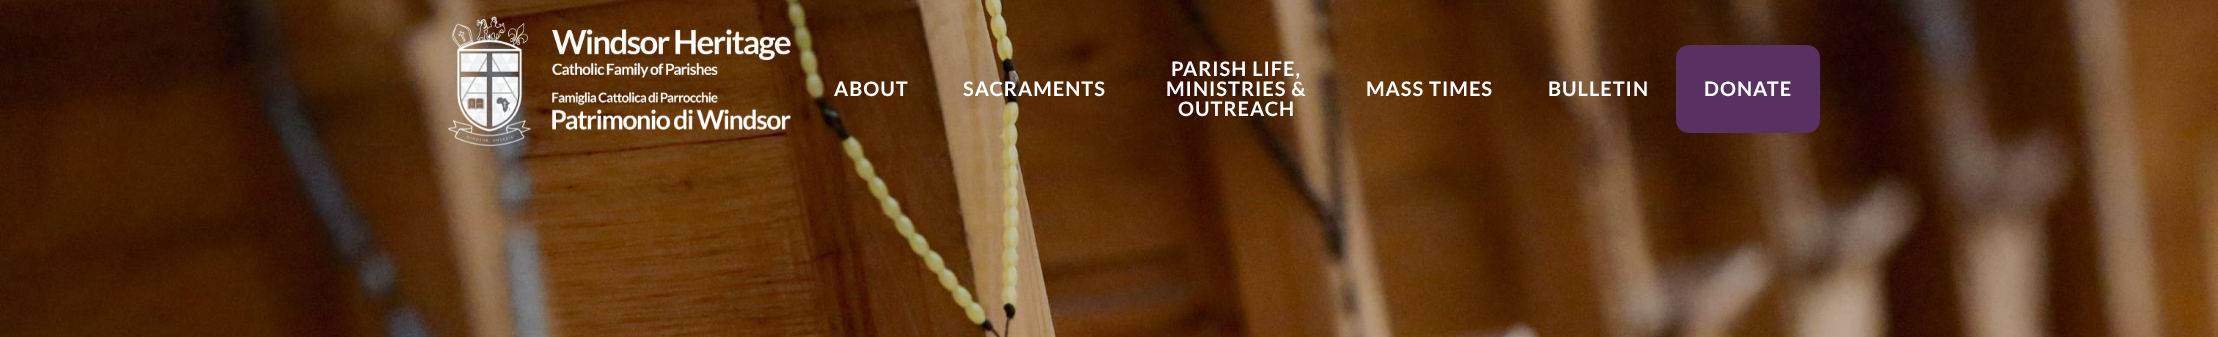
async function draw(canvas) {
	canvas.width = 2218;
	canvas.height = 337;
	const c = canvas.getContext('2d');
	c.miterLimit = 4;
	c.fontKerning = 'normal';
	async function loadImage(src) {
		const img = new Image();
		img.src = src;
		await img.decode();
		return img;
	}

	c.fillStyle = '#fff';
	c.fillRect(0, 0, 2218, 337);
	c.drawImage(await loadImage('img1.png'), 0, 0, 2218, 337);
	c.drawImage(await loadImage('img2.png'), 448, 16, 343, 131);
	c.letterSpacing = '1px';
	c.font = 'bold 20px Lato';
	for (const [text, x, y] of [
		['ABOUT', 834, 96],
		['SACRAMENTS', 963, 96],
		['PARISH LIFE,', 1171, 76],
		['MINISTRIES &', 1166, 96],
		['OUTREACH', 1178, 116],
		['MASS TIMES', 1366, 96],
		['BULLETIN', 1548, 96],
	]) {
		c.fillText(text, x, y);
	}
	c.fillStyle = '#593062';
	c.beginPath();
	c.roundRect(1676, 45, 144, 88, 13);
	c.fill();
	c.fillStyle = '#fff';
	c.fillText('DONATE', 1704, 96);
}

draw(document.querySelector('canvas'));
